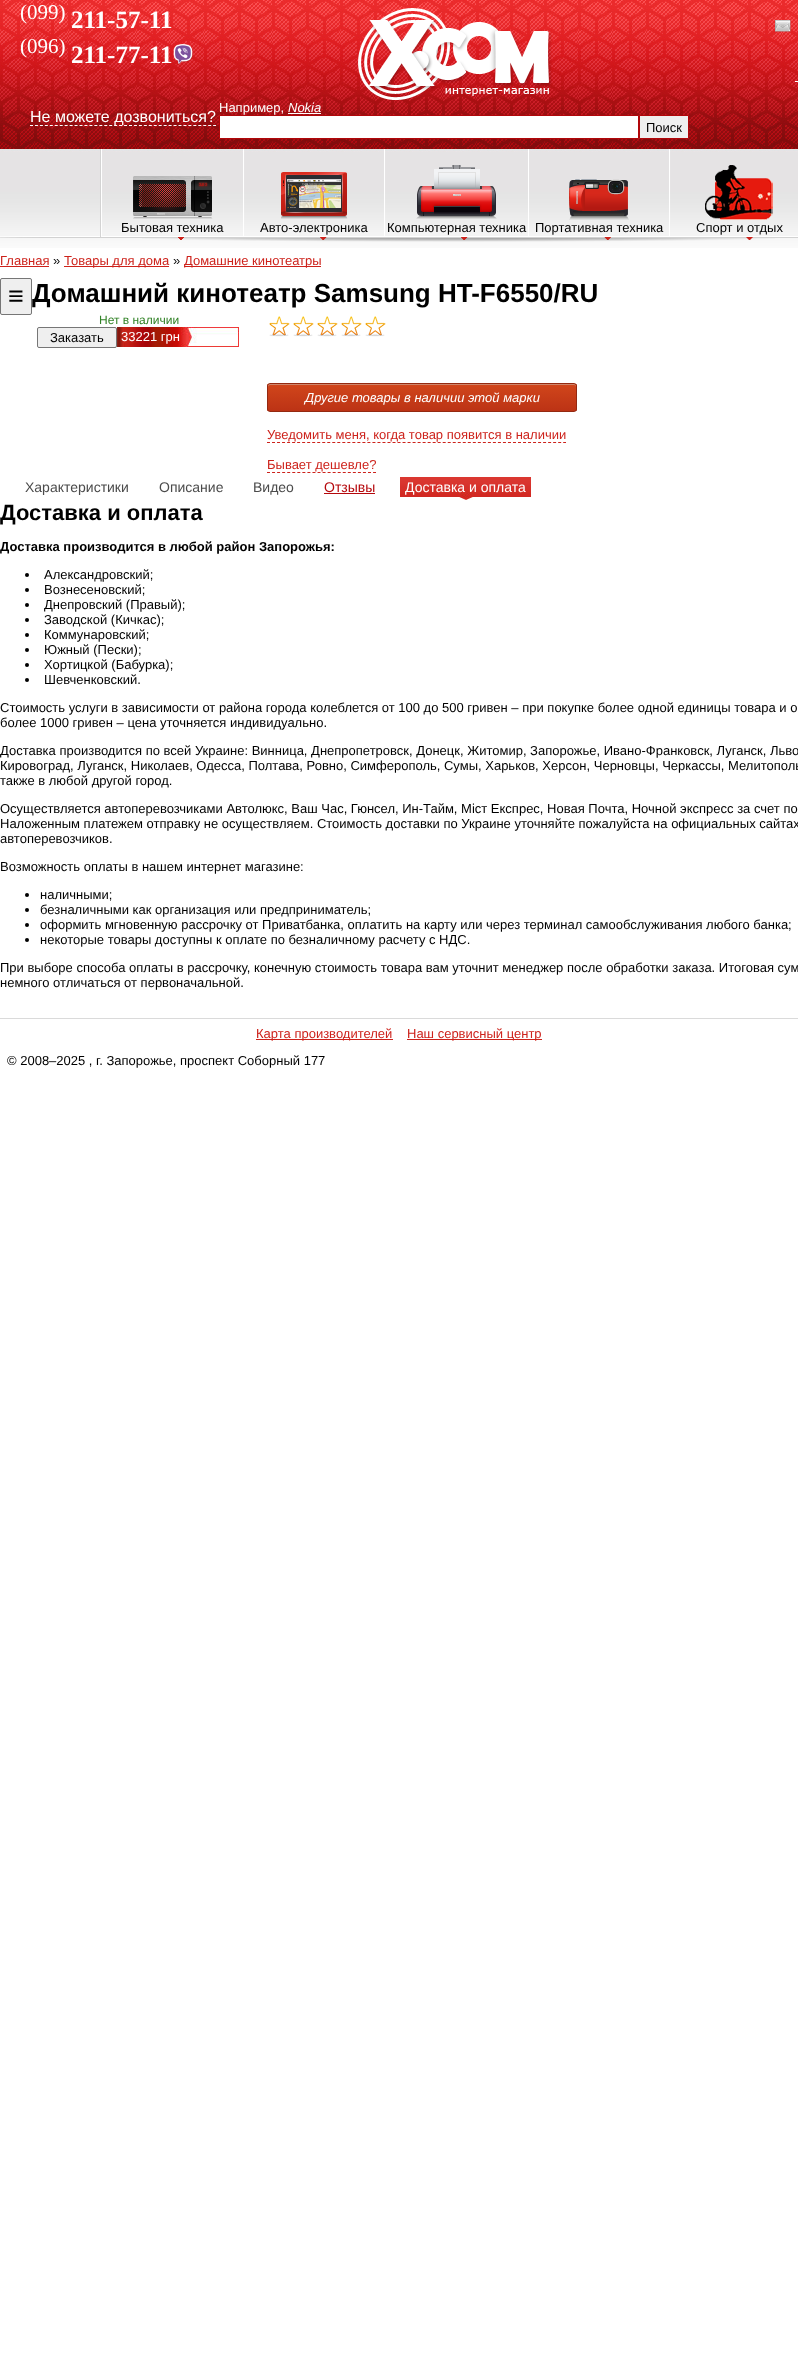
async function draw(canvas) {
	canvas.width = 798;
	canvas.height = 2355;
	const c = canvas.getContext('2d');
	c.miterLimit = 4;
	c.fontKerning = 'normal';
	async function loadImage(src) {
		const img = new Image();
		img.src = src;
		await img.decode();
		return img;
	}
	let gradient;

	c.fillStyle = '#fff';
	c.fillRect(0, 0, 798, 2355);
	c.drawImage(await loadImage('img1.png'), 0, 0, 798, 248);
	c.drawImage(await loadImage('img2.png'), 358, 8, 194, 92);
	c.font = '21px Liberation Serif';
	c.fillText('(099)', 20, 19);
	c.font = 'bold 25px Liberation Serif';
	c.fillText('211-57-11', 71, 28);
	c.font = '21px Liberation Serif';
	c.fillText('(096)', 20, 53);
	c.font = 'bold 25px Liberation Serif';
	c.fillText('211-77-11', 71, 63);
	c.drawImage(await loadImage('img3.png'), 173, 44, 20, 20);
	c.beginPath();
	c.moveTo(30, 125.5);
	c.lineTo(216, 125.5);
	c.strokeStyle = '#fff';
	c.setLineDash([3, 1.95]);
	c.stroke();
	c.font = '16px Liberation Sans';
	c.fillText('Не можете дозвониться?', 30, 122);
	c.drawImage(await loadImage('img4.png'), 775, 20, 16, 12);
	c.fillRect(795, 81, 3, 1);
	c.font = '13px Liberation Sans';
	c.fillText('Например,', 219, 112);
	c.font = 'italic 13px Liberation Sans';
	c.fillText('Nokia', 288, 112);
	c.fillRect(288, 113, 33, 1);
	c.beginPath();
	c.rect(219.5, 115.5, 419, 23);
	c.fill();
	c.strokeStyle = '#b1070a';
	c.setLineDash([]);
	c.stroke();
	c.fillStyle = '#efefef';
	c.beginPath();
	c.rect(639.5, 115.5, 49, 23);
	c.fill();
	c.stroke();
	c.font = '13px Liberation Sans';
	c.fillStyle = '#000';
	c.fillText('Поиск', 646, 132);
	c.drawImage(await loadImage('img5.png'), 142, 238, 633, 4);
	c.drawImage(await loadImage('img6.png'), 0, 149, 101, 89);
	c.drawImage(await loadImage('img7.png'), 101, 149, 142, 91);
	c.drawImage(await loadImage('img8.png'), 133, 176, 80, 43);
	c.fillText('Бытовая техника', 121, 232);
	c.drawImage(await loadImage('img9.png'), 243, 149, 141, 91);
	c.drawImage(await loadImage('img10.png'), 281, 172, 67, 47);
	c.fillText('Авто-электроника', 260, 232);
	c.drawImage(await loadImage('img11.png'), 384, 149, 144, 91);
	c.drawImage(await loadImage('img12.png'), 416, 165, 81, 54);
	c.fillText('Компьютерная техника', 387, 232);
	c.drawImage(await loadImage('img13.png'), 528, 149, 141, 91);
	c.drawImage(await loadImage('img14.png'), 569, 179, 60, 41);
	c.fillText('Портативная техника', 535, 232);
	c.drawImage(await loadImage('img15.png'), 669, 149, 129, 91);
	c.drawImage(await loadImage('img16.png'), 705, 165, 68, 55);
	c.fillText('Спорт и отдых', 696, 232);
	c.fillStyle = '#cd221b';
	c.fillText('Главная', 0, 265);
	c.fillRect(0, 266, 49, 1);
	c.fillStyle = '#000';
	c.fillText('»', 53, 265);
	c.fillStyle = '#cd221b';
	c.fillRect(64, 266, 105, 1);
	c.fillText('Товары для дома', 64, 265);
	c.fillStyle = '#000';
	c.fillText('»', 173, 265);
	c.fillStyle = '#cd221b';
	c.fillRect(184, 266, 137, 1);
	c.fillText('Домашние кинотеатры', 184, 265);
	c.fillStyle = '#efefef';
	c.beginPath();
	c.roundRect(0.5, 278.5, 31, 36, 1.5);
	c.fill();
	c.strokeStyle = '#767676';
	c.stroke();
	c.font = '27px Liberation Sans';
	c.fillStyle = '#000';
	c.fillText('≡', 8, 305);
	c.font = 'bold 26px Liberation Sans';
	c.fillText('Домашний кинотеатр Samsung HT-F6550/RU', 32, 302);
	c.font = '12px Liberation Sans';
	c.fillStyle = '#318226';
	c.fillText('Нет в наличии', 99, 324);
	c.drawImage(await loadImage('img17.png'), 117, 327, 122, 20);
	c.fillStyle = '#efefef';
	c.beginPath();
	c.roundRect(37.5, 327.5, 79, 20, 1.5);
	c.fill();
	c.stroke();
	c.font = '13px Liberation Sans';
	c.fillStyle = '#000';
	c.fillText('Заказать', 50, 342);
	c.fillStyle = '#fff';
	c.fillText('33221 грн', 121, 341);
	c.drawImage(await loadImage('img18.png'), 269, 316, 21, 21);
	c.drawImage(await loadImage('img18.png'), 293, 316, 21, 21);
	c.drawImage(await loadImage('img18.png'), 317, 316, 21, 21);
	c.drawImage(await loadImage('img18.png'), 341, 316, 21, 21);
	c.drawImage(await loadImage('img18.png'), 365, 316, 21, 21);
	c.save();
	c.beginPath();
	c.roundRect(267, 383, 310, 29, 3);
	c.clip();
	gradient = c.createLinearGradient(422, 384, 422, 411);
	gradient.addColorStop(0.05, '#d0451b');
	gradient.addColorStop(1, '#bc3315');
	c.fillStyle = gradient;
	c.fillRect(267, 384, 310, 27);
	c.restore();
	c.fillStyle = '#cf866c';
	c.beginPath();
	c.moveTo(270, 385);
	c.lineTo(574, 385);
	c.bezierCurveTo(575, 385, 576, 386, 576, 387);
	c.bezierCurveTo(576, 386, 576, 384, 574, 384);
	c.lineTo(269, 384);
	c.lineTo(268, 385);
	c.lineTo(268, 387);
	c.bezierCurveTo(268, 386, 269, 385, 270, 385);
	c.closePath();
	c.fill();
	c.beginPath();
	c.roundRect(267.5, 383.5, 309, 28, 2.5);
	c.strokeStyle = '#942911';
	c.stroke();
	c.font = 'italic 13px Liberation Sans';
	c.fillStyle = '#fff';
	c.fillText('Другие товары в наличии этой марки', 305, 402);
	c.font = '13px Liberation Sans';
	c.fillStyle = '#cd221b';
	c.fillText('Уведомить меня, когда товар появится в наличии', 267, 439);
	c.beginPath();
	c.moveTo(267, 442.5);
	c.lineTo(566, 442.5);
	c.strokeStyle = '#cd221b';
	c.setLineDash([3, 2.02]);
	c.stroke();
	c.fillText('Бывает дешевле?', 267, 469);
	c.beginPath();
	c.moveTo(267, 472.5);
	c.lineTo(376, 472.5);
	c.setLineDash([3, 2.05]);
	c.stroke();
	c.font = '14px Liberation Sans';
	c.fillStyle = '#4b4b4b';
	for (const [text, x, y] of [
		['Характеристики', 25, 492],
		['Описание', 159, 492],
		['Видео', 253, 492],
	]) {
		c.fillText(text, x, y);
	}
	c.fillStyle = '#b5080c';
	c.fillText('Отзывы', 324, 492);
	c.fillRect(324, 493, 51, 1);
	c.drawImage(await loadImage('img19.png'), 400, 477, 131, 20);
	c.drawImage(await loadImage('img20.png'), 459, 493, 14, 7);
	c.fillStyle = '#fff';
	c.fillText('Доставка и оплата', 405, 492);
	c.font = 'bold 22px Liberation Sans';
	c.fillStyle = '#000';
	c.fillText('Доставка и оплата', 0, 520);
	c.font = 'bold 13px Liberation Sans';
	c.fillText('Доставка производится в любой район Запорожья:', 0, 551);
	c.beginPath();
	c.arc(27, 575, 2, 0, 2 * Math.PI);
	c.fill();
	c.font = '13px Liberation Sans';
	c.fillText('Александровский;', 44, 579);
	c.beginPath();
	c.arc(27, 590, 2, 0, 2 * Math.PI);
	c.fill();
	c.fillText('Вознесеновский;', 44, 594);
	c.beginPath();
	c.arc(27, 605, 2, 0, 2 * Math.PI);
	c.fill();
	c.fillText('Днепровский (Правый);', 44, 609);
	c.beginPath();
	c.arc(27, 620, 2, 0, 2 * Math.PI);
	c.fill();
	c.fillText('Заводской (Кичкас);', 44, 624);
	c.beginPath();
	c.arc(27, 635, 2, 0, 2 * Math.PI);
	c.fill();
	c.fillText('Коммунаровский;', 44, 639);
	c.beginPath();
	c.arc(27, 650, 2, 0, 2 * Math.PI);
	c.fill();
	c.fillText('Южный (Пески);', 44, 654);
	c.beginPath();
	c.arc(27, 665, 2, 0, 2 * Math.PI);
	c.fill();
	c.fillText('Хортицкой (Бабурка);', 44, 669);
	c.beginPath();
	c.arc(27, 680, 2, 0, 2 * Math.PI);
	c.fill();
	for (const [text, x, y] of [
		['Шевченковский.', 44, 684],
		['Стоимость услуги в зависимости от района города колеблется от 100 до 500 гривен – при покупке более одной единицы товара и о', 0, 712],
		['более 1000 гривен – цена уточняется индивидуально.', 0, 727],
		['Доставка производится по всей Украине: Винница, Днепропетровск, Донецк, Житомир, Запорожье, Ивано-Франковск, Луганск, Льво', 0, 755],
		['Кировоград, Луганск, Николаев, Одесса, Полтава, Ровно, Симферополь, Сумы, Харьков, Херсон, Черновцы, Черкассы, Мелитополь', 0, 770],
		['также в любой другой город.', 0, 785],
		['Осуществляется автоперевозчиками Автолюкс, Ваш Час, Гюнсел, Ин-Тайм, Міст Експрес, Новая Почта, Ночной экспресс за счет по', 0, 813],
		['Наложенным платежем отправку не осуществляем. Стоимость доставки по Украине уточняйте пожалуйста на официальных сайтах', 0, 828],
		['автоперевозчиков.', 0, 843],
		['Возможность оплаты в нашем интернет магазине:', 0, 871],
	]) {
		c.fillText(text, x, y);
	}
	c.beginPath();
	c.arc(27, 895, 2, 0, 2 * Math.PI);
	c.fill();
	c.fillText('наличными;', 40, 899);
	c.beginPath();
	c.arc(27, 910, 2, 0, 2 * Math.PI);
	c.fill();
	c.fillText('безналичными как организация или предприниматель;', 40, 914);
	c.beginPath();
	c.arc(27, 925, 2, 0, 2 * Math.PI);
	c.fill();
	c.fillText('оформить мгновенную рассрочку от Приватбанка, оплатить на карту или через терминал самообслуживания любого банка;', 40, 929);
	c.beginPath();
	c.arc(27, 940, 2, 0, 2 * Math.PI);
	c.fill();
	for (const [text, x, y] of [
		['некоторые товары доступны к оплате по безналичному расчету с НДС.', 40, 944],
		['При выборе способа оплаты в рассрочку, конечную стоимость товара вам уточнит менеджер после обработки заказа. Итоговая сум', 0, 972],
		['немного отличаться от первоначальной.', 0, 987],
	]) {
		c.fillText(text, x, y);
	}
	c.fillStyle = '#dadada';
	c.fillRect(0, 1018, 798, 1);
	c.fillStyle = '#cd221b';
	c.fillRect(256, 1039, 137, 1);
	c.fillText('Карта производителей', 256, 1038);
	c.fillRect(407, 1039, 135, 1);
	c.fillText('Наш сервисный центр', 407, 1038);
	c.fillStyle = '#000';
	c.fillText('© 2008–2025 , г. Запорожье, проспект Соборный 177', 7, 1065);
}

draw(document.querySelector('canvas'));
